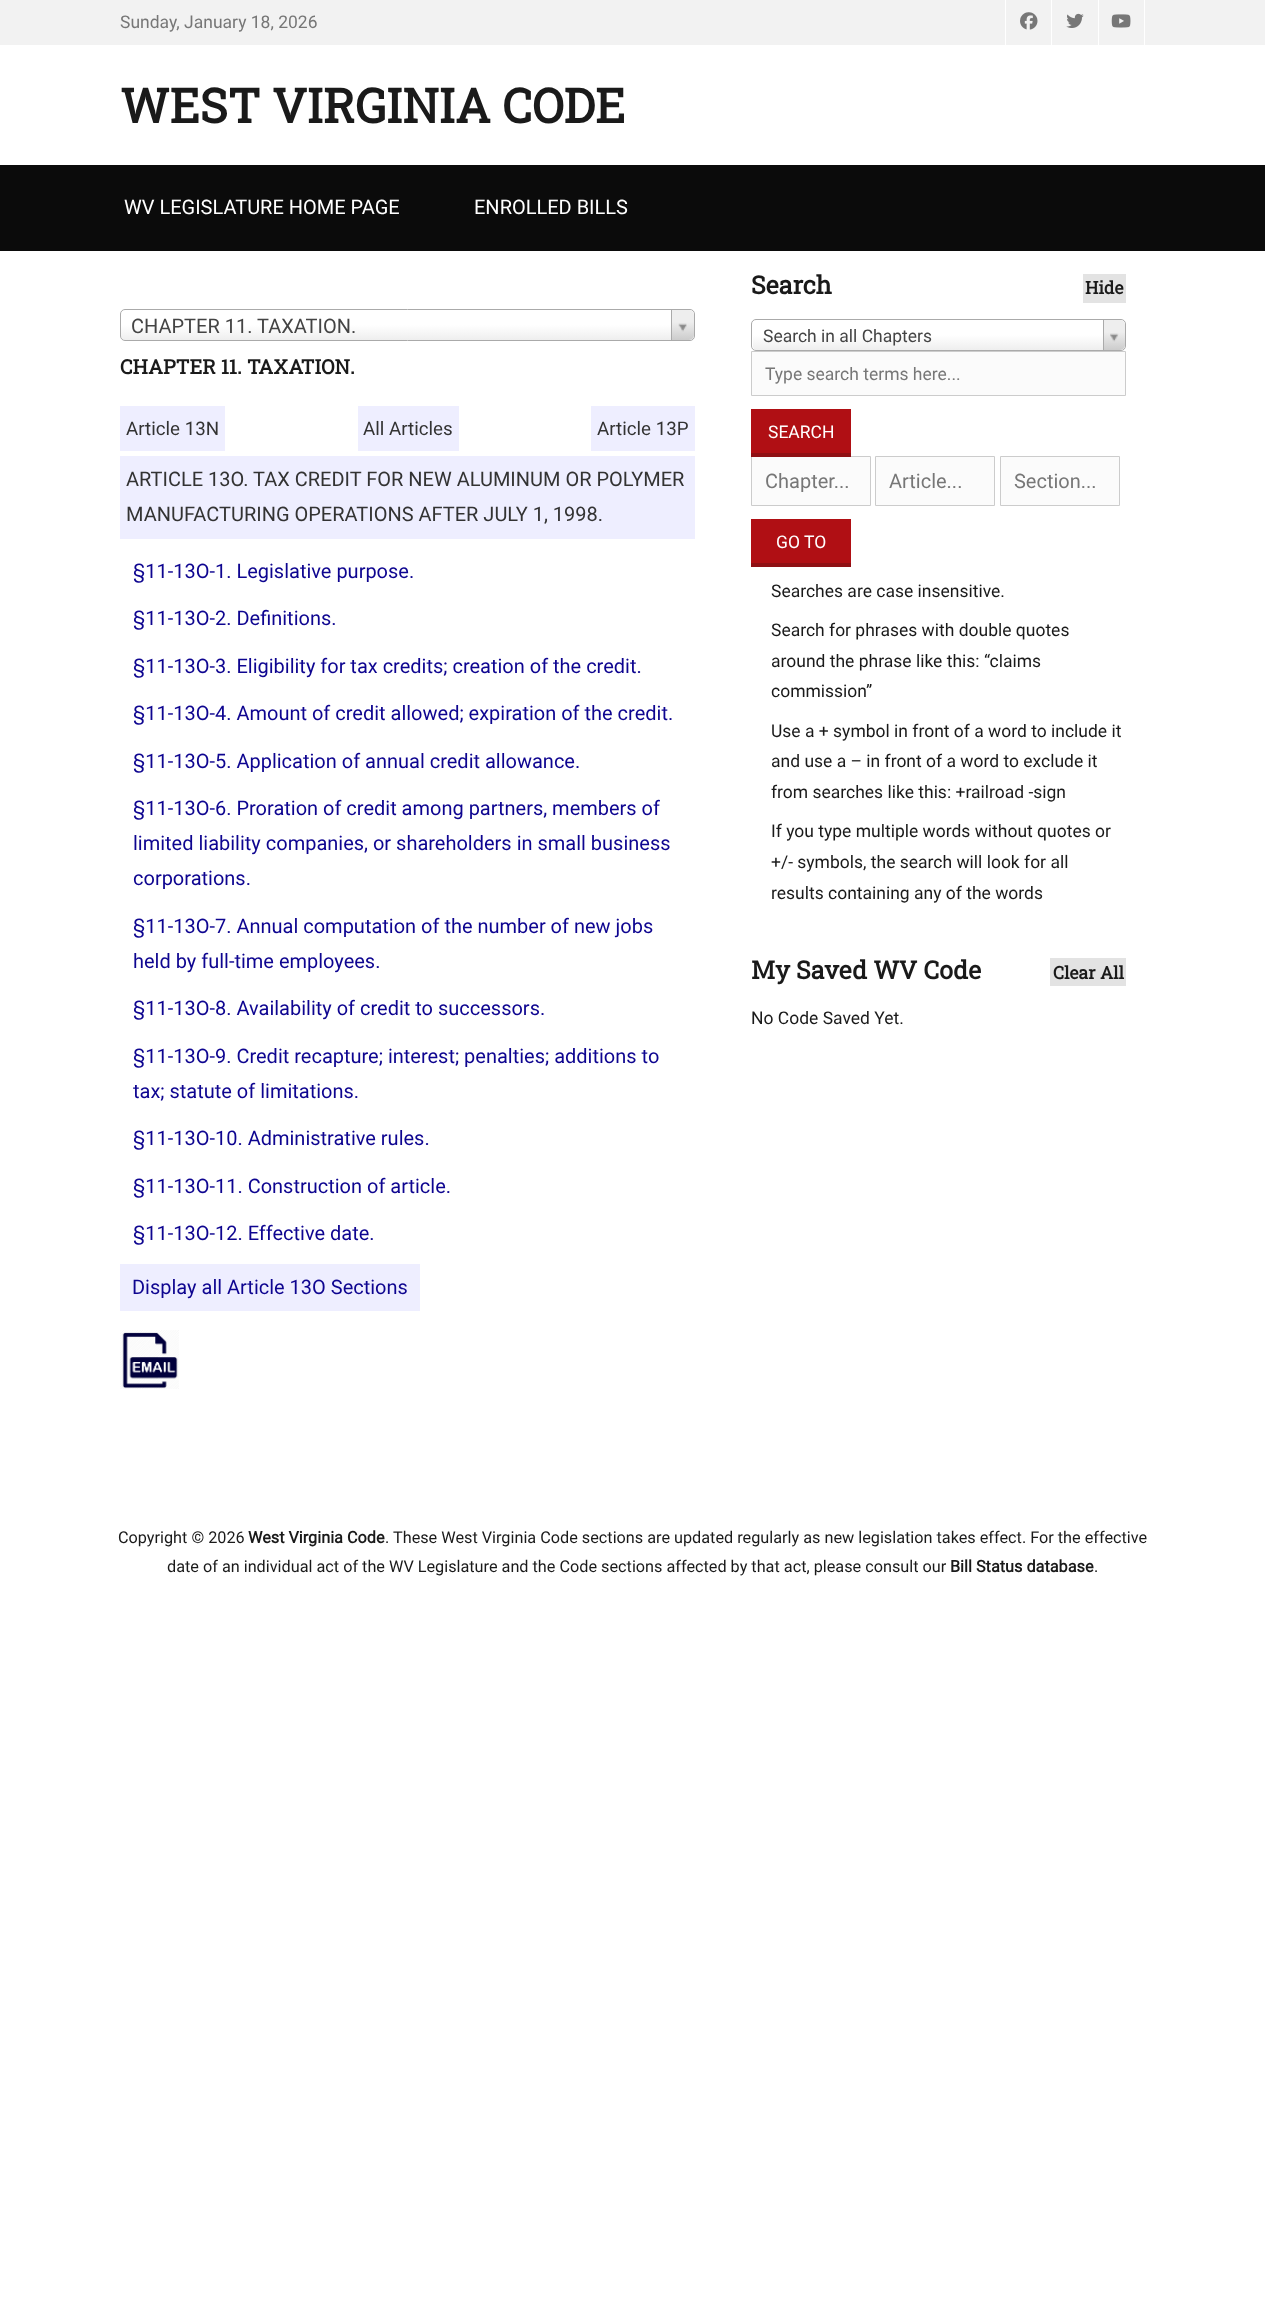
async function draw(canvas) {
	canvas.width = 1265;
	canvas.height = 2309;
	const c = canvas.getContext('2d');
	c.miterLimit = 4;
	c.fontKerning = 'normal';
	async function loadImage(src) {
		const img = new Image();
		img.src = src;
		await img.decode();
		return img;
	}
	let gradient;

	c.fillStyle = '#fff';
	c.fillRect(0, 0, 1265, 2309);
	c.fillStyle = '#f2f2f2';
	c.fillRect(0, 0, 1265, 45);
	c.font = '17.5px Roboto';
	c.fillStyle = '#777';
	c.fillText('Sunday, January 18, 2026', 120, 28);
	c.fillStyle = '#fff';
	c.fillRect(1005, 0, 1, 45);
	c.drawImage(await loadImage('img1.png'), 1020, 12, 18, 18);
	c.fillRect(1051, 0, 1, 45);
	c.drawImage(await loadImage('img2.png'), 1066, 13, 18, 15);
	c.fillRect(1144, 0, 1, 45);
	c.fillRect(1098, 0, 1, 45);
	c.drawImage(await loadImage('img3.png'), 1111, 14, 20, 14);
	c.font = 'bold 47.5px Roboto Slab';
	c.fillStyle = '#1a1a1a';
	c.fillText('WEST VIRGINIA CODE', 120, 123);
	c.fillStyle = '#0b0b0b';
	c.fillRect(0, 165, 1265, 86);
	c.font = '20px Roboto';
	c.fillStyle = '#fff';
	c.fillText('WV LEGISLATURE HOME PAGE', 124, 214);
	c.fillText('ENROLLED BILLS', 474, 214);
	gradient = c.createLinearGradient(408, 340, 408, 310);
	gradient.addColorStop(0, '#eee');
	gradient.addColorStop(0.5, '#fff');
	c.fillStyle = gradient;
	c.beginPath();
	c.roundRect(121, 310, 573, 30, 4);
	c.fill();
	c.beginPath();
	c.roundRect(120.5, 309.5, 574, 31, 4.5);
	c.strokeStyle = '#aaa';
	c.stroke();
	c.fillStyle = '#444';
	c.fillText('CHAPTER 11. TAXATION.', 131, 333);
	c.save();
	c.beginPath();
	c.roundRect(121, 310, 573, 30, 4);
	c.clip();
	gradient = c.createLinearGradient(683, 340, 683, 310);
	gradient.addColorStop(0, '#ccc');
	gradient.addColorStop(0.6, '#eee');
	c.fillStyle = gradient;
	c.beginPath();
	c.roundRect(671, 310, 23, 30, [0, 5, 5, 0]);
	c.fill();
	c.restore();
	c.fillStyle = '#aaa';
	c.fillRect(671, 310, 1, 30);
	c.drawImage(await loadImage('img4.png'), 678, 323, 9, 9);
	c.font = 'bold 20px Roboto Slab';
	c.fillStyle = '#1a1a1a';
	c.fillText('CHAPTER 11. TAXATION.', 120, 374);
	c.fillStyle = '#eef';
	c.fillRect(120, 406, 105, 45);
	c.font = '18.75px Roboto';
	c.fillStyle = '#333';
	c.fillText('Article 13N', 126, 435);
	c.fillStyle = '#eef';
	c.fillRect(358, 406, 101, 45);
	c.fillStyle = '#333';
	c.fillText('All Articles', 363, 435);
	c.fillStyle = '#eef';
	c.fillRect(591, 406, 104, 45);
	c.fillStyle = '#333';
	c.fillText('Article 13P', 597, 435);
	c.fillStyle = '#eef';
	c.fillRect(120, 456, 575, 83);
	c.font = '20px Roboto';
	c.fillStyle = '#333';
	c.fillText('ARTICLE 13O. TAX CREDIT FOR NEW ALUMINUM OR POLYMER', 126, 486);
	c.fillText('MANUFACTURING OPERATIONS AFTER JULY 1, 1998.', 126, 521);
	c.fillStyle = '#0e0590';
	for (const [text, x, y] of [
		['§11-13O-1. Legislative purpose.', 133, 578],
		['§11-13O-2. Definitions.', 133, 625],
		['§11-13O-3. Eligibility for tax credits; creation of the credit.', 133, 673],
		['§11-13O-4. Amount of credit allowed; expiration of the credit.', 133, 720],
		['§11-13O-5. Application of annual credit allowance.', 133, 768],
		['§11-13O-6. Proration of credit among partners, members of', 133, 815],
		['limited liability companies, or shareholders in small business', 133, 850],
		['corporations.', 133, 885],
		['§11-13O-7. Annual computation of the number of new jobs', 133, 933],
		['held by full-time employees.', 133, 968],
		['§11-13O-8. Availability of credit to successors.', 133, 1015],
		['§11-13O-9. Credit recapture; interest; penalties; additions to', 133, 1063],
		['tax; statute of limitations.', 133, 1098],
		['§11-13O-10. Administrative rules.', 133, 1145],
		['§11-13O-11. Construction of article.', 133, 1193],
		['§11-13O-12. Effective date.', 133, 1240],
	]) {
		c.fillText(text, x, y);
	}
	c.fillStyle = '#eef';
	c.fillRect(120, 1264, 300, 47);
	c.fillStyle = '#0e0590';
	c.fillText('Display all Article 13O Sections', 132, 1294);
	c.drawImage(await loadImage('img5.png'), 120, 1330, 59, 59);
	c.font = 'bold 25px Roboto Slab';
	c.fillStyle = '#1a1a1a';
	c.fillText('Search', 751, 294);
	c.fillStyle = '#e3e3e3';
	c.fillRect(1083, 274, 43, 29);
	c.font = 'bold 17.5px Roboto Slab';
	c.fillStyle = '#1a1a1a';
	c.fillText('Hide', 1085, 294);
	gradient = c.createLinearGradient(939, 350, 939, 320);
	gradient.addColorStop(0, '#eee');
	gradient.addColorStop(0.5, '#fff');
	c.fillStyle = gradient;
	c.beginPath();
	c.roundRect(753, 320, 372, 30, 4);
	c.fill();
	c.beginPath();
	c.roundRect(751.5, 319.5, 374, 31, 4.5);
	c.stroke();
	c.font = '17.5px Roboto';
	c.fillStyle = '#444';
	c.fillText('Search in all Chapters', 763, 342);
	c.save();
	c.beginPath();
	c.roundRect(753, 320, 372, 30, 4);
	c.clip();
	gradient = c.createLinearGradient(1114, 350, 1114, 320);
	gradient.addColorStop(0, '#ccc');
	gradient.addColorStop(0.6, '#eee');
	c.fillStyle = gradient;
	c.beginPath();
	c.roundRect(1103, 320, 22, 30, [0, 5, 5, 0]);
	c.fill();
	c.restore();
	c.fillStyle = '#aaa';
	c.fillRect(1103, 320, 1, 30);
	c.drawImage(await loadImage('img6.png'), 1110, 333, 9, 9);
	c.fillStyle = '#fbfbfb';
	c.beginPath();
	c.rect(751.5, 351.5, 374, 44);
	c.fill();
	c.strokeStyle = '#ccc';
	c.stroke();
	c.fillStyle = '#777';
	c.fillText('Type search terms here...', 765, 380);
	c.fillStyle = '#b00f14';
	c.fillRect(751, 409, 100, 44);
	c.fillStyle = '#fbfbfb';
	c.beginPath();
	c.rect(751.5, 456.5, 119, 49);
	c.fill();
	c.stroke();
	c.fillStyle = '#8f1014';
	c.fillRect(751, 453, 100, 4);
	c.fillStyle = '#fff';
	c.fillText('SEARCH', 768, 438);
	c.font = '20px Roboto';
	c.fillStyle = '#777';
	c.fillText('Chapter...', 765, 488);
	c.fillStyle = '#fbfbfb';
	c.beginPath();
	c.rect(875.5, 456.5, 119, 49);
	c.fill();
	c.stroke();
	c.fillStyle = '#777';
	c.fillText('Article...', 889, 488);
	c.fillStyle = '#fbfbfb';
	c.beginPath();
	c.rect(1000.5, 456.5, 119, 49);
	c.fill();
	c.stroke();
	c.fillStyle = '#777';
	c.fillText('Section...', 1014, 488);
	c.fillStyle = '#b00f14';
	c.fillRect(751, 519, 100, 44);
	c.fillStyle = '#8f1014';
	c.fillRect(751, 563, 100, 4);
	c.font = '17.5px Roboto';
	c.fillStyle = '#fff';
	c.fillText('GO TO', 776, 548);
	c.fillStyle = '#1a1a1a';
	for (const [text, x, y] of [
		['Searches are case insensitive.', 771, 597],
		['Search for phrases with double quotes', 771, 636],
		['around the phrase like this: “claims', 771, 667],
		['commission”', 771, 697],
		['Use a + symbol in front of a word to include it', 771, 737],
		['and use a – in front of a word to exclude it', 771, 767],
		['from searches like this: +railroad -sign', 771, 798],
		['If you type multiple words without quotes or', 771, 837],
		['+/- symbols, the search will look for all', 771, 868],
		['results containing any of the words', 771, 899],
	]) {
		c.fillText(text, x, y);
	}
	c.font = 'bold 25px Roboto Slab';
	c.fillText('My Saved WV Code', 751, 979);
	c.fillStyle = '#e3e3e3';
	c.fillRect(1050, 958, 76, 28);
	c.font = 'bold 17.5px Roboto Slab';
	c.fillStyle = '#1a1a1a';
	c.fillText('Clear All', 1053, 979);
	c.font = '17.5px Roboto';
	c.fillText('No Code Saved Yet.', 751, 1024);
	c.font = '16.25px Roboto';
	c.fillText('Copyright © 2026', 118, 1543);
	c.font = 'bold 16.25px Roboto';
	c.fillText('West Virginia Code', 248, 1543);
	c.font = '16.25px Roboto';
	c.fillText('. These West Virginia Code sections are updated regularly as new legislation takes effect. For the effective', 385, 1543);
	c.fillText('date of an individual act of the WV Legislature and the Code sections affected by that act, please consult our', 167, 1572);
	c.font = 'bold 16.25px Roboto';
	c.fillText('Bill Status database', 950, 1572);
	c.font = '16.25px Roboto';
	c.fillText('.', 1094, 1572);
}

draw(document.querySelector('canvas'));
